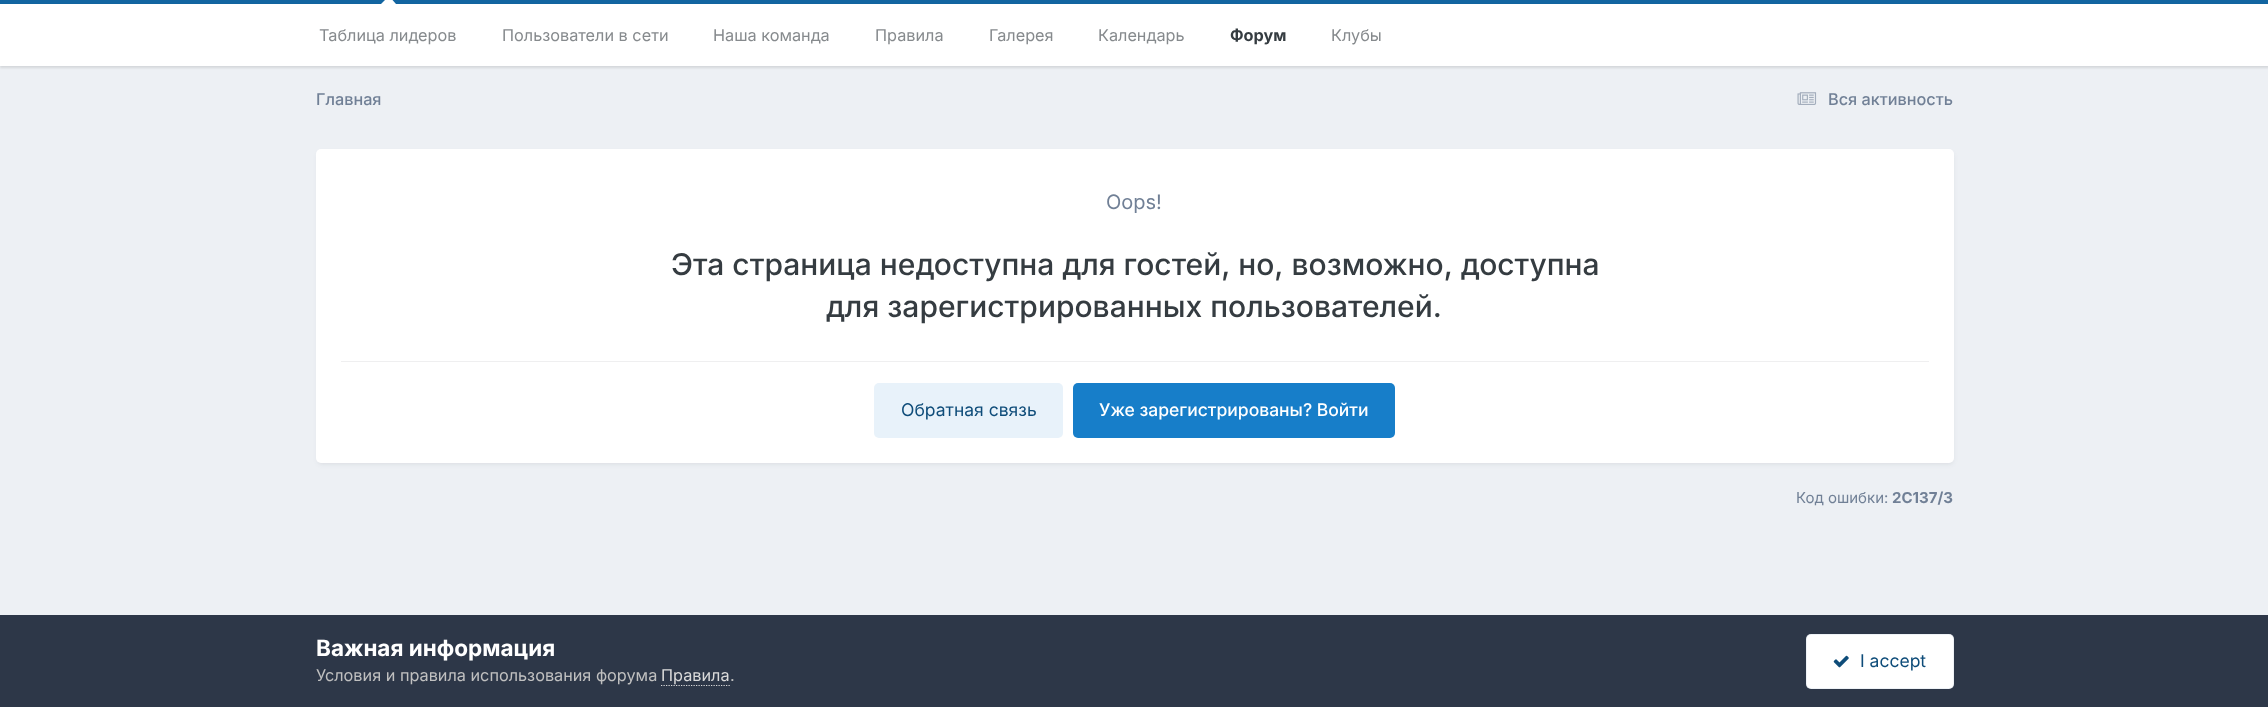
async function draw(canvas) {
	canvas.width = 2268;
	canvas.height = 707;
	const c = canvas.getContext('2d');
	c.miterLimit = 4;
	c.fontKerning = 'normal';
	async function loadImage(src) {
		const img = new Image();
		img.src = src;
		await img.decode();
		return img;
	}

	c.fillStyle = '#edf0f4';
	c.fillRect(0, 0, 2268, 707);
	c.fillStyle = '#1265a1';
	c.fillRect(0, 0, 2268, 4);
	c.fillStyle = '#0000001a';
	c.filter = 'blur(1px)';
	c.beginPath();
	c.rect(0, 5, 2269, 63);
	c.fill();
	c.filter = 'none';
	c.fillStyle = '#fff';
	c.fillRect(0, 4, 2268, 62);
	c.beginPath();
	c.moveTo(396, 4);
	c.lineTo(381, 4);
	c.lineTo(389, -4);
	c.closePath();
	c.fill();
	c.font = '16.25px Inter';
	c.fillStyle = '#868a8d';
	for (const [text, x, y] of [
		['Таблица лидеров', 319, 41],
		['Пользователи в сети', 502, 41],
		['Наша команда', 713, 41],
		['Правила', 875, 41],
		['Галерея', 989, 41],
		['Календарь', 1098, 41],
	]) {
		c.fillText(text, x, y);
	}
	c.font = 'bold 16.25px Inter';
	c.fillStyle = '#353c41';
	c.fillText('Форум', 1230, 41);
	c.font = '16.25px Inter';
	c.fillStyle = '#868a8d';
	c.fillText('Клубы', 1331, 41);
	c.font = '500 16.25px Inter';
	c.fillStyle = '#718096';
	c.fillText('Главная', 316, 105);
	c.drawImage(await loadImage('img1.png'), 1797, 92, 20, 13);
	c.fillText('Вся активность', 1828, 105);
	c.fillStyle = '#2d37481a';
	c.filter = 'blur(2.5px)';
	c.beginPath();
	c.roundRect(318, 153, 1635, 311, 4);
	c.fill();
	c.filter = 'none';
	c.fillStyle = '#fff';
	c.beginPath();
	c.roundRect(316, 149, 1638, 314, 5);
	c.fill();
	c.font = '20px Inter';
	c.fillStyle = '#718096';
	c.fillText('Oops!', 1106, 209);
	c.font = '500 30px Inter';
	c.fillStyle = '#353c41';
	c.fillText('Эта страница недоступна для гостей, но, возможно, доступна', 671, 275);
	c.fillText('для зарегистрированных пользователей.', 826, 317);
	c.fillStyle = '#efeff0';
	c.fillRect(341, 361, 1588, 1);
	c.fillStyle = '#e8f2fa';
	c.beginPath();
	c.roundRect(874, 383, 189, 55, 5);
	c.fill();
	c.font = '17.5px Inter';
	c.fillStyle = '#0e4c79';
	c.fillText('Обратная связь', 901, 416);
	c.fillStyle = '#177ec9';
	c.beginPath();
	c.roundRect(1073, 383, 322, 55, 5);
	c.fill();
	c.font = '500 17.5px Inter';
	c.fillStyle = '#fff';
	c.fillText('Уже зарегистрированы? Войти', 1099, 416);
	c.font = '15px Inter';
	c.fillStyle = '#718096';
	c.fillText('Код ошибки:', 1796, 503);
	c.font = 'bold 15px Inter';
	c.fillText('2C137/3', 1892, 503);
	c.fillStyle = '#2d3748';
	c.fillRect(0, 615, 2268, 92);
	c.font = 'bold 22.5px Inter';
	c.fillStyle = '#fff';
	c.fillText('Важная информация', 316, 656);
	c.font = '16.25px Inter';
	c.fillStyle = '#c0c0c0';
	c.fillText('Условия и правила использования форума', 316, 681);
	c.beginPath();
	c.moveTo(661, 685.5);
	c.lineTo(730, 685.5);
	c.strokeStyle = '#dadada';
	c.lineWidth = 1.2;
	c.setLineDash([1.25, 1.25]);
	c.stroke();
	c.fillStyle = '#dadada';
	c.fillText('Правила', 661, 681);
	c.fillStyle = '#c0c0c0';
	c.fillText('.', 730, 681);
	c.fillStyle = '#fff';
	c.beginPath();
	c.roundRect(1806, 634, 148, 55, 5);
	c.fill();
	c.beginPath();
	c.roundRect(1806.5, 634.5, 147, 54, 4.5);
	c.strokeStyle = '#0e4c7912';
	c.lineWidth = 1;
	c.setLineDash([]);
	c.stroke();
	c.drawImage(await loadImage('img2.png'), 1833, 655, 16, 13);
	c.font = '17.5px Inter';
	c.fillStyle = '#0e4c79';
	c.fillText('I accept', 1860, 667);
}

draw(document.querySelector('canvas'));
